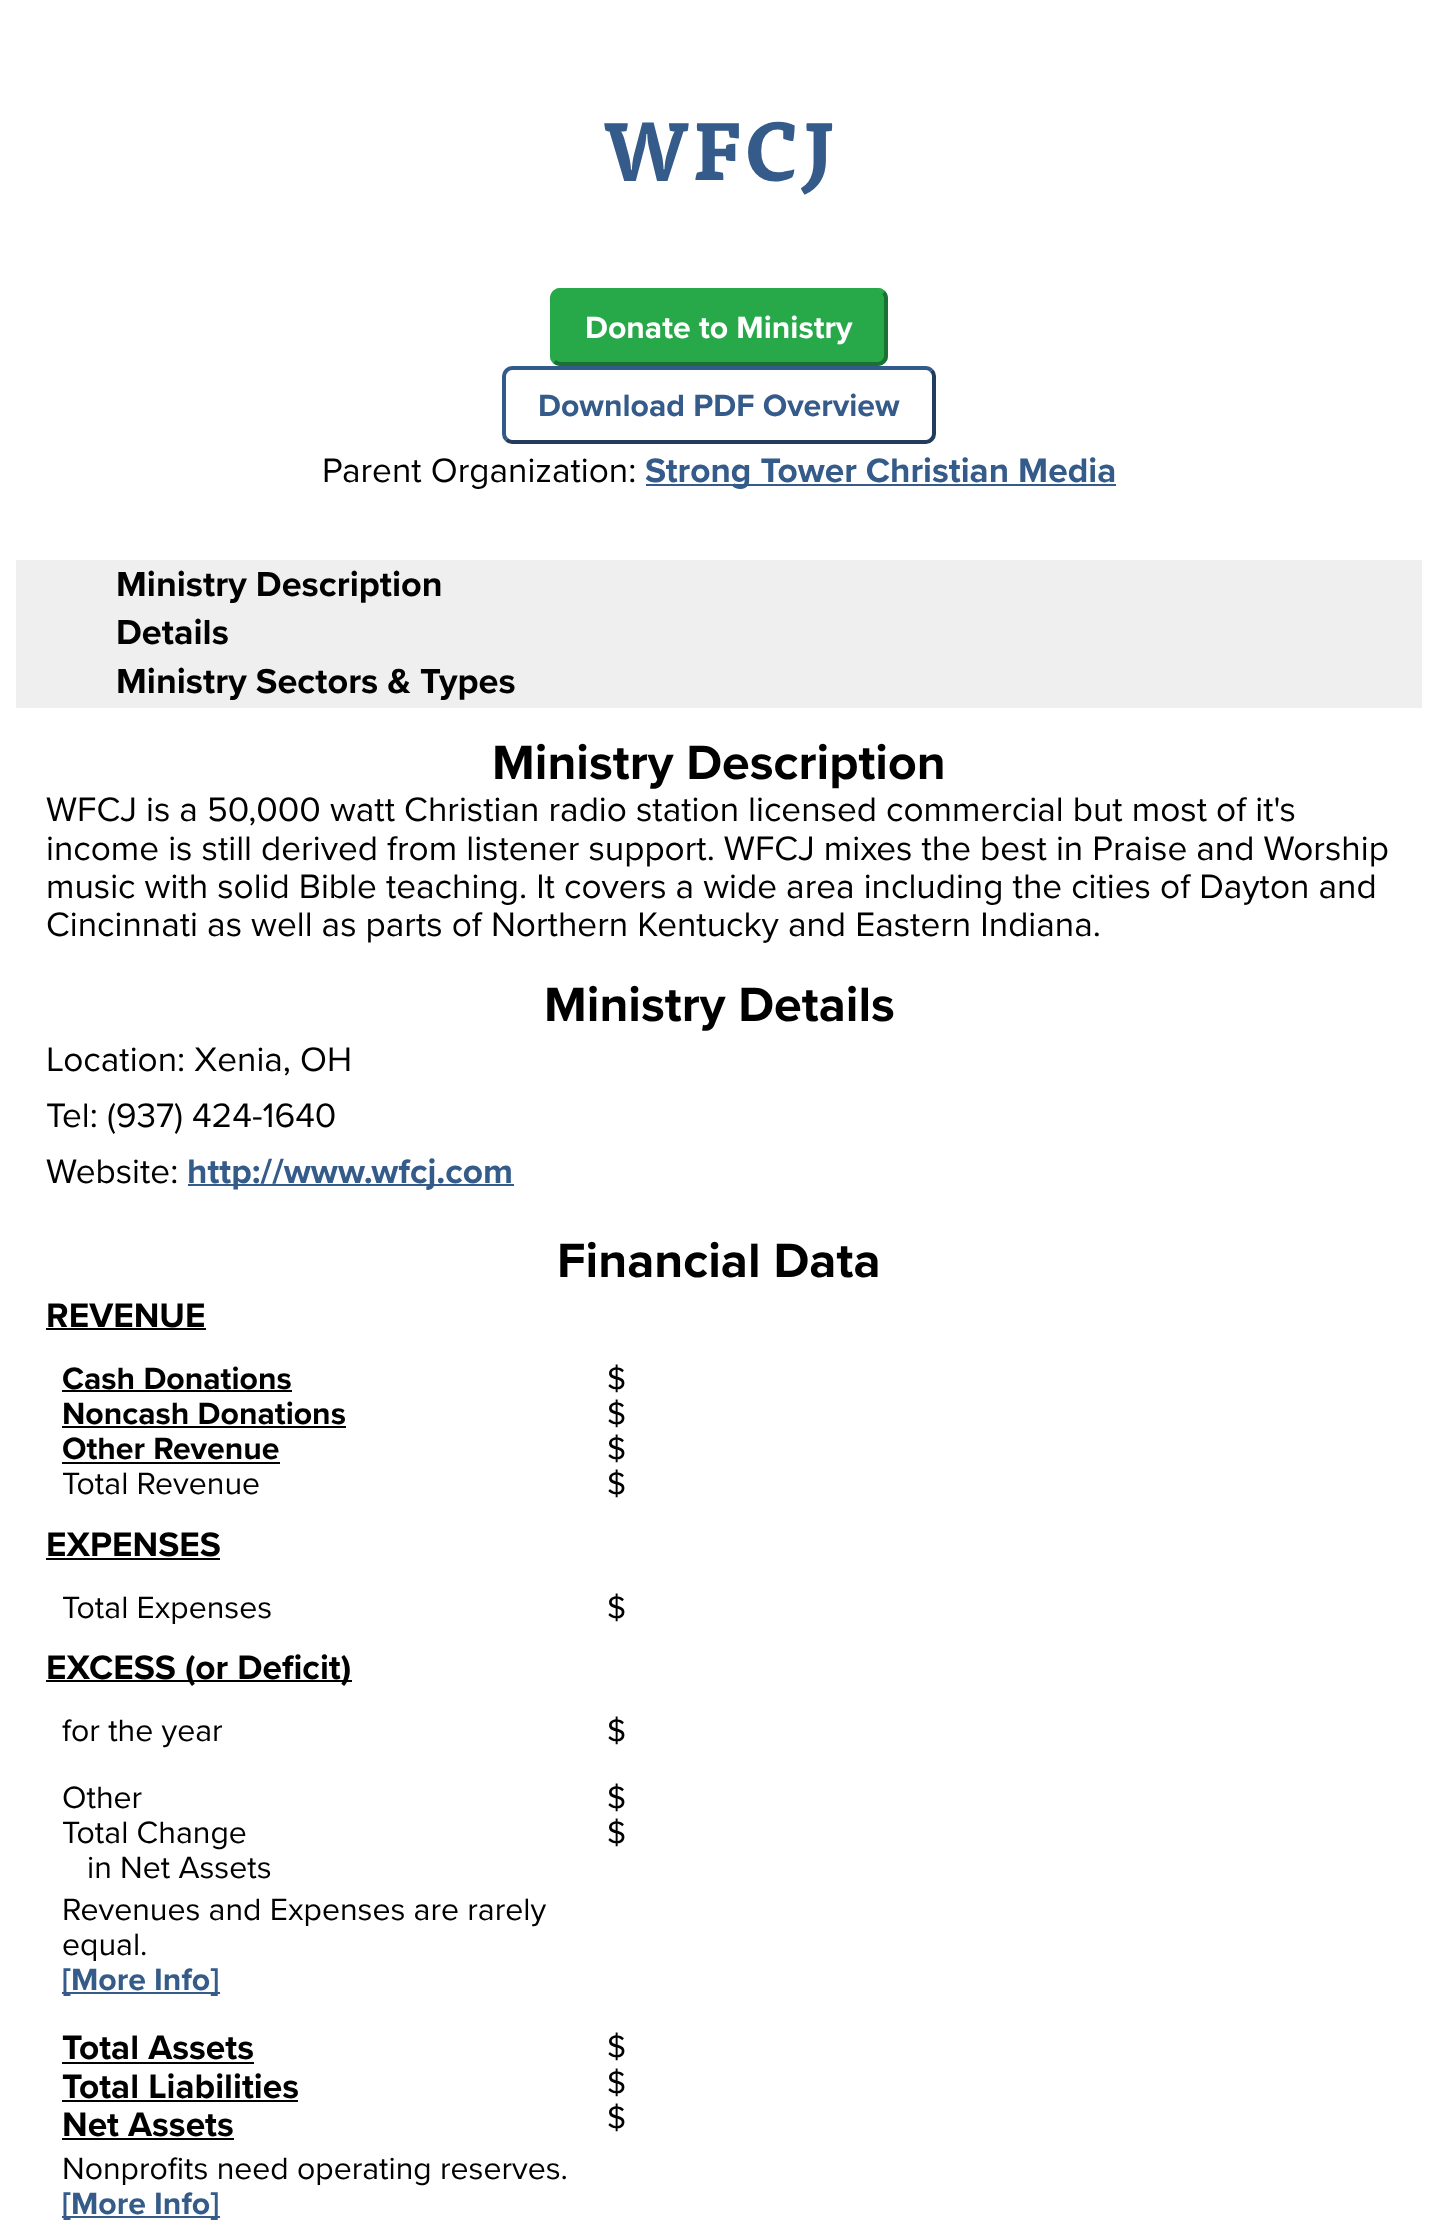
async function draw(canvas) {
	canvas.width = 1438;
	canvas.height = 2220;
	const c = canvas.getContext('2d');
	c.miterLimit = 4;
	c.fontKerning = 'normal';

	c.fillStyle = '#fff';
	c.fillRect(0, 0, 1438, 2220);
	c.letterSpacing = '1.5px';
	c.font = 'bold 80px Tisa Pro';
	c.fillStyle = '#345b89';
	c.fillText('WFCJ', 602, 180);
	c.fillStyle = '#28a949';
	c.beginPath();
	c.roundRect(550, 288, 338, 78, 10);
	c.fill();
	c.beginPath();
	c.moveTo(883.5, 292.5);
	c.bezierCurveTo(885, 294, 886, 296, 886, 298);
	c.lineTo(886, 356);
	c.bezierCurveTo(886, 358, 885, 360, 883.5, 361.5);
	c.bezierCurveTo(882, 363, 880, 364, 878, 364);
	c.lineTo(560, 364);
	c.bezierCurveTo(558, 364, 556, 363, 554.5, 361.5);
	c.strokeStyle = '#1b7131';
	c.lineWidth = 4;
	c.stroke();
	c.beginPath();
	c.moveTo(554.5, 361.5);
	c.bezierCurveTo(553, 360, 552, 358, 552, 356);
	c.lineTo(552, 298);
	c.bezierCurveTo(552, 296, 553, 294, 554.5, 292.5);
	c.bezierCurveTo(556, 291, 558, 290, 560, 290);
	c.lineTo(878, 290);
	c.bezierCurveTo(880, 290, 882, 291, 883.5, 292.5);
	c.strokeStyle = '#28a949';
	c.stroke();
	c.letterSpacing = '0px';
	c.font = 'bold 32px Proxima Nova';
	c.fillStyle = '#fff';
	c.fillText('Donate to Ministry', 585, 338);
	c.beginPath();
	c.moveTo(931.5, 370.5);
	c.bezierCurveTo(933, 372, 934, 374, 934, 376);
	c.lineTo(934, 434);
	c.bezierCurveTo(934, 436, 933, 438, 931.5, 439.5);
	c.bezierCurveTo(930, 441, 928, 442, 926, 442);
	c.lineTo(512, 442);
	c.bezierCurveTo(510, 442, 508, 441, 506.5, 439.5);
	c.strokeStyle = '#213c5d';
	c.stroke();
	c.beginPath();
	c.moveTo(506.5, 439.5);
	c.bezierCurveTo(505, 438, 504, 436, 504, 434);
	c.lineTo(504, 376);
	c.bezierCurveTo(504, 374, 505, 372, 506.5, 370.5);
	c.bezierCurveTo(508, 369, 510, 368, 512, 368);
	c.lineTo(926, 368);
	c.bezierCurveTo(928, 368, 930, 369, 931.5, 370.5);
	c.strokeStyle = '#325a8b';
	c.stroke();
	c.fillStyle = '#345b89';
	c.fillText('Download PDF Overview', 538, 416);
	c.font = '35.2px Proxima Nova';
	c.fillStyle = '#000';
	c.fillText('Parent Organization:', 322, 482);
	c.fillStyle = '#345b89';
	c.fillRect(646, 484, 470, 2);
	c.font = 'bold 35.2px Proxima Nova';
	c.fillText('Strong Tower Christian Media', 645, 482);
	c.fillStyle = '#efefef';
	c.fillRect(16, 560, 1406, 148);
	c.font = 'bold 36px Proxima Nova';
	c.fillStyle = '#000';
	for (const [text, x, y] of [
		['Ministry Description', 116, 596],
		['Details', 116, 644],
		['Ministry Sectors & Types', 116, 693],
	]) {
		c.fillText(text, x, y);
	}
	c.font = 'bold 50px Proxima Nova';
	c.fillText('Ministry Description', 492, 779);
	c.font = '35.2px Proxima Nova';
	for (const [text, x, y] of [
		['WFCJ is a 50,000 watt Christian radio station licensed commercial but most of it\'s', 46, 821],
		['income is still derived from listener support. WFCJ mixes the best in Praise and Worship', 46, 860],
		['music with solid Bible teaching. It covers a wide area including the cities of Dayton and', 46, 898],
		['Cincinnati as well as parts of Northern Kentucky and Eastern Indiana.', 46, 936],
	]) {
		c.fillText(text, x, y);
	}
	c.font = 'bold 50px Proxima Nova';
	c.fillText('Ministry Details', 544, 1021);
	c.font = '35.2px Proxima Nova';
	for (const [text, x, y] of [
		['Location: Xenia, OH', 46, 1071],
		['Tel: (937) 424-1640', 46, 1127],
		['Website:', 46, 1183],
	]) {
		c.fillText(text, x, y);
	}
	c.fillStyle = '#345b89';
	c.fillRect(188, 1184, 326, 2);
	c.font = 'bold 35.2px Proxima Nova';
	c.fillText('http://www.wfcj.com', 187, 1183);
	c.font = 'bold 50px Proxima Nova';
	c.fillStyle = '#000';
	c.fillText('Financial Data', 557, 1277);
	c.font = 'bold 35.2px Proxima Nova';
	c.fillText('REVENUE', 46, 1327);
	c.fillRect(46, 1328, 160, 2);
	c.font = 'bold 32px Proxima Nova';
	c.fillText('Cash Donations', 62, 1389);
	c.fillRect(62, 1390, 230, 2);
	c.fillText('Noncash Donations', 62, 1424);
	c.fillRect(62, 1426, 284, 2);
	c.fillText('Other Revenue', 62, 1459);
	c.fillRect(62, 1462, 218, 2);
	c.font = '32px Proxima Nova';
	for (const [text, x, y] of [
		['Total Revenue', 62, 1494],
		['$', 607, 1389],
		['$', 607, 1424],
		['$', 607, 1459],
		['$', 607, 1494],
	]) {
		c.fillText(text, x, y);
	}
	c.font = 'bold 35.2px Proxima Nova';
	c.fillText('EXPENSES', 46, 1556);
	c.fillRect(46, 1558, 174, 2);
	c.font = '32px Proxima Nova';
	c.fillText('Total Expenses', 62, 1618);
	c.fillText('$', 607, 1618);
	c.fillRect(46, 1680, 306, 2);
	c.font = 'bold 35.2px Proxima Nova';
	c.fillText('EXCESS (or Deficit)', 46, 1679);
	c.font = '32px Proxima Nova';
	for (const [text, x, y] of [
		['for the year', 62, 1741],
		['$', 607, 1741],
		['Other', 62, 1808],
		['Total Change', 62, 1843],
		['in Net Assets', 87, 1878],
		['Revenues and Expenses are rarely', 62, 1920],
		['equal.', 62, 1955],
	]) {
		c.fillText(text, x, y);
	}
	c.fillStyle = '#345b89';
	c.fillRect(62, 1992, 158, 2);
	c.font = 'bold 32px Proxima Nova';
	c.fillText('[More Info]', 62, 1990);
	c.font = '32px Proxima Nova';
	c.fillStyle = '#000';
	c.fillText('$', 607, 1808);
	c.fillText('$', 607, 1843);
	c.font = 'bold 35.2px Proxima Nova';
	c.fillText('Total Assets', 62, 2059);
	c.fillRect(62, 2062, 192, 2);
	c.fillText('Total Liabilities', 62, 2098);
	c.fillRect(62, 2100, 236, 2);
	c.fillText('Net Assets', 62, 2136);
	c.fillRect(62, 2138, 172, 2);
	c.font = '32px Proxima Nova';
	c.fillText('Nonprofits need operating reserves.', 62, 2179);
	c.fillStyle = '#345b89';
	c.fillRect(62, 2216, 158, 2);
	c.font = 'bold 32px Proxima Nova';
	c.fillText('[More Info]', 62, 2214);
	c.font = '32px Proxima Nova';
	c.fillStyle = '#000';
	for (const [text, x, y] of [
		['$', 607, 2057],
		['$', 607, 2093],
		['$', 607, 2128],
	]) {
		c.fillText(text, x, y);
	}
}

draw(document.querySelector('canvas'));
